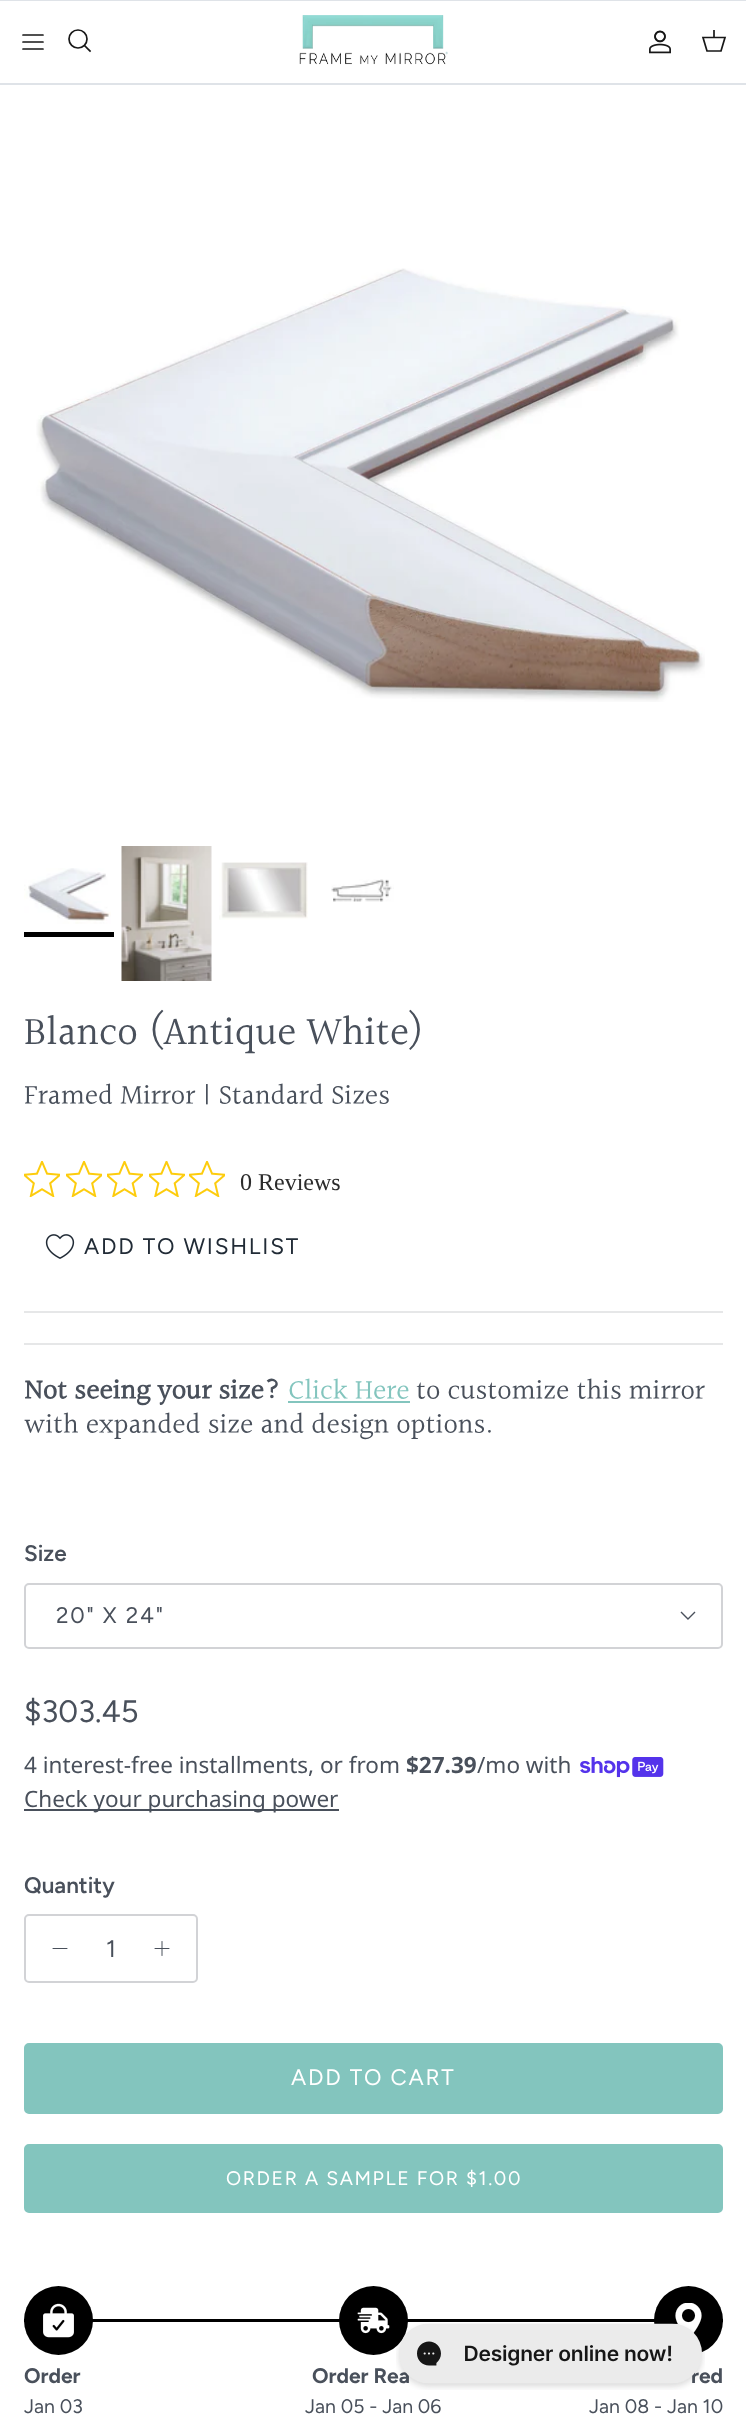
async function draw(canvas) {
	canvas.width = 746;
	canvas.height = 2424;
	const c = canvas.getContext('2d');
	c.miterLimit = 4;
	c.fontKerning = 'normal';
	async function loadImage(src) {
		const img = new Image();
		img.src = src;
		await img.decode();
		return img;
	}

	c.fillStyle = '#fff';
	c.fillRect(0, 0, 746, 2424);
	c.fillStyle = '#dfe3e8';
	c.fillRect(0, 0, 746, 1);
	c.fillRect(0, 83, 746, 2);
	c.beginPath();
	c.moveTo(23, 42);
	c.lineTo(43, 42);
	c.moveTo(23, 35);
	c.lineTo(43, 35);
	c.moveTo(23, 49);
	c.lineTo(43, 49);
	c.strokeStyle = '#171717';
	c.lineWidth = 1.7;
	c.lineCap = 'round';
	c.lineJoin = 'round';
	c.stroke();
	c.beginPath();
	c.arc(78, 39, 9, 0, 2 * Math.PI);
	c.stroke();
	c.beginPath();
	c.moveTo(85, 46);
	c.lineTo(90, 51);
	c.lineCap = 'square';
	c.lineJoin = 'miter';
	c.stroke();
	c.drawImage(await loadImage('img1.png'), 299, 15, 149, 50);
	c.drawImage(await loadImage('img2.png'), 649, 30, 22, 24);
	c.beginPath();
	c.moveTo(703, 37.5);
	c.lineTo(725, 37.5);
	c.lineTo(721, 51);
	c.lineTo(707, 51);
	c.closePath();
	c.lineCap = 'butt';
	c.stroke();
	c.fillStyle = '#171717d9';
	c.fillRect(713, 30, 2, 8);
	c.drawImage(await loadImage('img3.png'), 36, 268, 669, 434);
	c.drawImage(await loadImage('img4.png'), 24, 868, 87, 56);
	c.fillStyle = '#000';
	c.fillRect(24, 932, 90, 5);
	c.drawImage(await loadImage('img5.png'), 121, 846, 91, 135);
	c.drawImage(await loadImage('img6.png'), 219, 862, 89, 58);
	c.drawImage(await loadImage('img7.png'), 331, 879, 63, 23);
	c.font = '40.5px Halant';
	c.fillStyle = '#49505b';
	c.fillText('Blanco (Antique White)', 24, 1046);
	c.font = '28.25px Halant';
	c.fillText('Framed Mirror | Standard Sizes', 24, 1105);
	c.drawImage(await loadImage('img8.png'), 24, 1161, 36, 36);
	c.drawImage(await loadImage('img8.png'), 66, 1161, 36, 36);
	c.drawImage(await loadImage('img9.png'), 107, 1161, 36, 36);
	c.drawImage(await loadImage('img9.png'), 149, 1161, 36, 36);
	c.drawImage(await loadImage('img8.png'), 189, 1161, 36, 36);
	c.font = '24px Liberation Serif';
	c.fillStyle = '#2c2c2c';
	c.fillText('0 Reviews', 240, 1190);
	c.drawImage(await loadImage('img10.png'), 45, 1234, 30, 25);
	c.letterSpacing = '1.75px';
	c.font = '22.5px Figtree';
	c.fillStyle = '#212b36';
	c.fillText('ADD TO WISHLIST', 84, 1254);
	c.fillStyle = '#e6e7e8';
	c.fillRect(24, 1311, 699, 2);
	c.fillRect(24, 1343, 699, 2);
	c.letterSpacing = '0px';
	c.font = 'bold 28.25px Halant';
	c.fillStyle = '#49505b';
	c.fillText('Not seeing your size?', 24, 1400);
	c.font = '28.25px Halant';
	c.fillStyle = '#83c5be';
	c.fillText('Click Here', 288, 1400);
	c.fillRect(288, 1401, 122, 2);
	c.fillStyle = '#49505b';
	c.fillText('to customize this mirror', 416, 1400);
	c.fillText('with expanded size and design options.', 24, 1434);
	c.font = '600 22.5px Figtree';
	c.fillText('Size', 24, 1561);
	c.beginPath();
	c.roundRect(25, 1584, 697, 64, 4);
	c.strokeStyle = '#d2d3d6';
	c.lineWidth = 2;
	c.stroke();
	c.letterSpacing = '1.75px';
	c.font = '22.5px Figtree';
	c.fillText('20" X 24"', 56, 1623);
	c.beginPath();
	c.moveTo(695, 1612);
	c.lineTo(688, 1619);
	c.lineTo(681, 1612);
	c.strokeStyle = '#49505b';
	c.lineWidth = 1.4;
	c.stroke();
	c.letterSpacing = '0px';
	c.font = '31px Figtree';
	c.fillText('$303.45', 24, 1722);
	c.font = '22.5px Noto Sans';
	c.fillText('4 interest-free installments, or from', 24, 1773);
	c.font = 'bold 22.5px Noto Sans';
	c.fillText('$27.39', 406, 1773);
	c.font = '22.5px Noto Sans';
	c.fillText('/mo with', 477, 1773);
	c.drawImage(await loadImage('img11.png'), 580, 1757, 84, 21);
	c.fillRect(24, 1809, 315, 2);
	c.fillText('Check your purchasing power', 24, 1807);
	c.font = '600 22.5px Figtree';
	c.fillText('Quantity', 24, 1893);
	c.beginPath();
	c.roundRect(25, 1915, 172, 67, 4);
	c.strokeStyle = '#d2d3d6';
	c.lineWidth = 2;
	c.stroke();
	c.beginPath();
	c.moveTo(53, 1948.5);
	c.lineTo(67, 1948.5);
	c.strokeStyle = '#49505b';
	c.lineWidth = 1;
	c.lineCap = 'round';
	c.lineJoin = 'round';
	c.stroke();
	c.font = '24px Figtree';
	c.fillText('1', 106, 1957);
	c.beginPath();
	c.moveTo(162, 1941.5);
	c.lineTo(162, 1955.5);
	c.moveTo(155, 1948.5);
	c.lineTo(169, 1948.5);
	c.stroke();
	c.fillStyle = '#83c5be';
	c.beginPath();
	c.roundRect(25, 2044, 697, 69, 4);
	c.fill();
	c.strokeStyle = '#83c5be';
	c.lineWidth = 2;
	c.lineJoin = 'miter';
	c.stroke();
	c.letterSpacing = '1.75px';
	c.font = '22.5px Figtree';
	c.fillStyle = '#fff';
	c.fillText('ADD TO CART', 291, 2085);
	c.fillStyle = '#83c5be';
	c.beginPath();
	c.roundRect(25, 2145, 697, 67, 4);
	c.fill();
	c.stroke();
	c.letterSpacing = '1.6px';
	c.font = '19.5px Figtree';
	c.fillStyle = '#fff';
	c.fillText('ORDER A SAMPLE FOR $1.00', 226, 2185);
	c.fillStyle = '#000';
	c.fillRect(24, 2319, 699, 3);
	c.beginPath();
	c.arc(58.5, 2320.5, 34.5, 0, 2 * Math.PI);
	c.fill();
	c.drawImage(await loadImage('img12.png'), 43, 2303, 31, 35);
	c.letterSpacing = '0px';
	c.font = 'bold 21px Figtree';
	c.fillStyle = '#49505b';
	c.fillText('Order', 24, 2383);
	c.font = '19.5px Figtree';
	c.fillText('Jan 03', 24, 2413);
	c.fillStyle = '#000';
	c.beginPath();
	c.arc(373.5, 2320.5, 34.5, 0, 2 * Math.PI);
	c.fill();
	c.drawImage(await loadImage('img13.png'), 357, 2307, 33, 27);
	c.font = 'bold 21px Figtree';
	c.fillStyle = '#49505b';
	c.fillText('Order Rea', 312, 2383);
	c.font = '19.5px Figtree';
	c.fillText('Jan 05 - Jan 06', 305, 2413);
	c.fillStyle = '#000';
	c.beginPath();
	c.arc(688.5, 2320.5, 34.5, 0, 2 * Math.PI);
	c.fill();
	c.drawImage(await loadImage('img14.png'), 675, 2303, 27, 31);
	c.font = 'bold 21px Figtree';
	c.fillStyle = '#49505b';
	c.fillText('red', 691, 2383);
	c.font = '19.5px Figtree';
	c.fillText('Jan 08 - Jan 10', 589, 2413);
	c.drawImage(await loadImage('img15.png'), 396, 2323, 309, 67);
}

draw(document.querySelector('canvas'));
